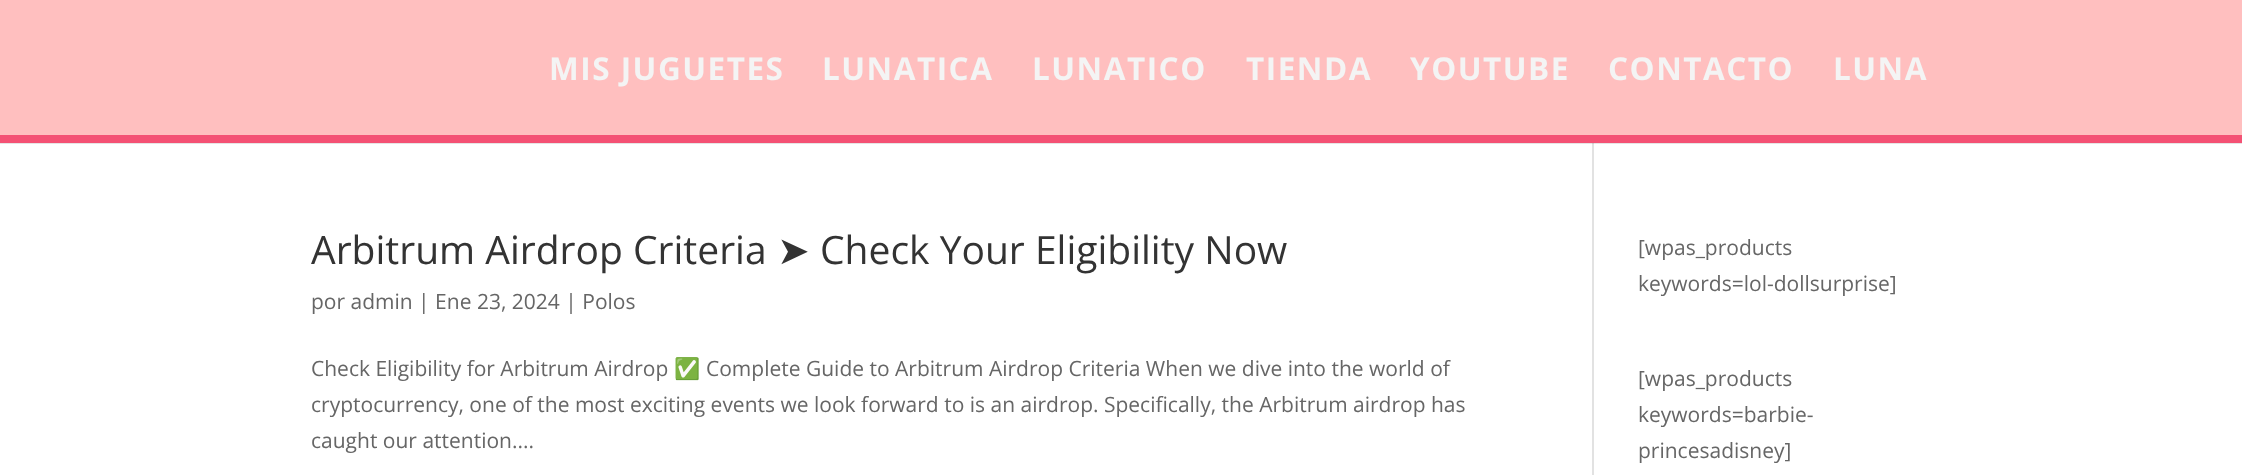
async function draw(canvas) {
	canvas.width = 2242;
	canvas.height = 475;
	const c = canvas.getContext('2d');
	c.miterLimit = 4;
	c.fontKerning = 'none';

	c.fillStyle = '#fff';
	c.fillRect(0, 0, 2242, 475);
	c.fillStyle = '#e2e2e2';
	c.fillRect(1592, 143, 2, 332);
	c.fillStyle = '#0000001a';
	c.beginPath();
	c.moveTo(0, 142);
	c.lineTo(0, 144);
	c.lineTo(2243, 144);
	c.lineTo(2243, 2);
	c.lineTo(2242, 2);
	c.lineTo(2242, 142);
	c.closePath();
	c.fill();
	c.fillStyle = '#ffbfbf';
	c.fillRect(0, 0, 2242, 135);
	c.fillStyle = '#f45174';
	c.fillRect(0, 135, 2242, 8);
	c.letterSpacing = '1.5px';
	c.font = 'bold 31.5px Open Sans';
	c.fillStyle = '#f4f4f4';
	for (const [text, x, y] of [
		['MIS JUGUETES', 549, 80],
		['LUNATICA', 822, 80],
		['LUNATICO', 1032, 80],
		['TIENDA', 1246, 80],
		['YOUTUBE', 1410, 80],
		['CONTACTO', 1608, 80],
		['LUNA', 1833, 80],
	]) {
		c.fillText(text, x, y);
	}
	c.letterSpacing = '0px';
	c.font = '39px Open Sans';
	c.fillStyle = '#333';
	c.fillText('Arbitrum Airdrop Criteria', 311, 264);
	c.font = '39px DejaVu Sans';
	c.fillText('➤', 777, 264);
	c.font = '39px Open Sans';
	c.fillText('Check Your Eligibility Now', 820, 264);
	c.font = '21px Open Sans';
	c.fillStyle = '#666';
	c.fillText('por admin | Ene 23, 2024 | Polos', 311, 309);
	c.fillText('Check Eligibility for Arbitrum Airdrop', 311, 376);
	c.font = '21px Noto Color Emoji';
	c.fillText('✅', 674, 376);
	c.font = '21px Open Sans';
	for (const [text, x, y] of [
		['Complete Guide to Arbitrum Airdrop Criteria When we dive into the world of', 706, 376],
		['cryptocurrency, one of the most exciting events we look forward to is an airdrop. Specifically, the Arbitrum airdrop has', 311, 412],
		['caught our attention....', 311, 448],
		['[wpas_products', 1638, 255],
		['keywords=lol-dollsurprise]', 1638, 291],
		['[wpas_products', 1638, 386],
		['keywords=barbie-', 1638, 422],
		['princesadisney]', 1638, 458],
	]) {
		c.fillText(text, x, y);
	}
}

draw(document.querySelector('canvas'));
